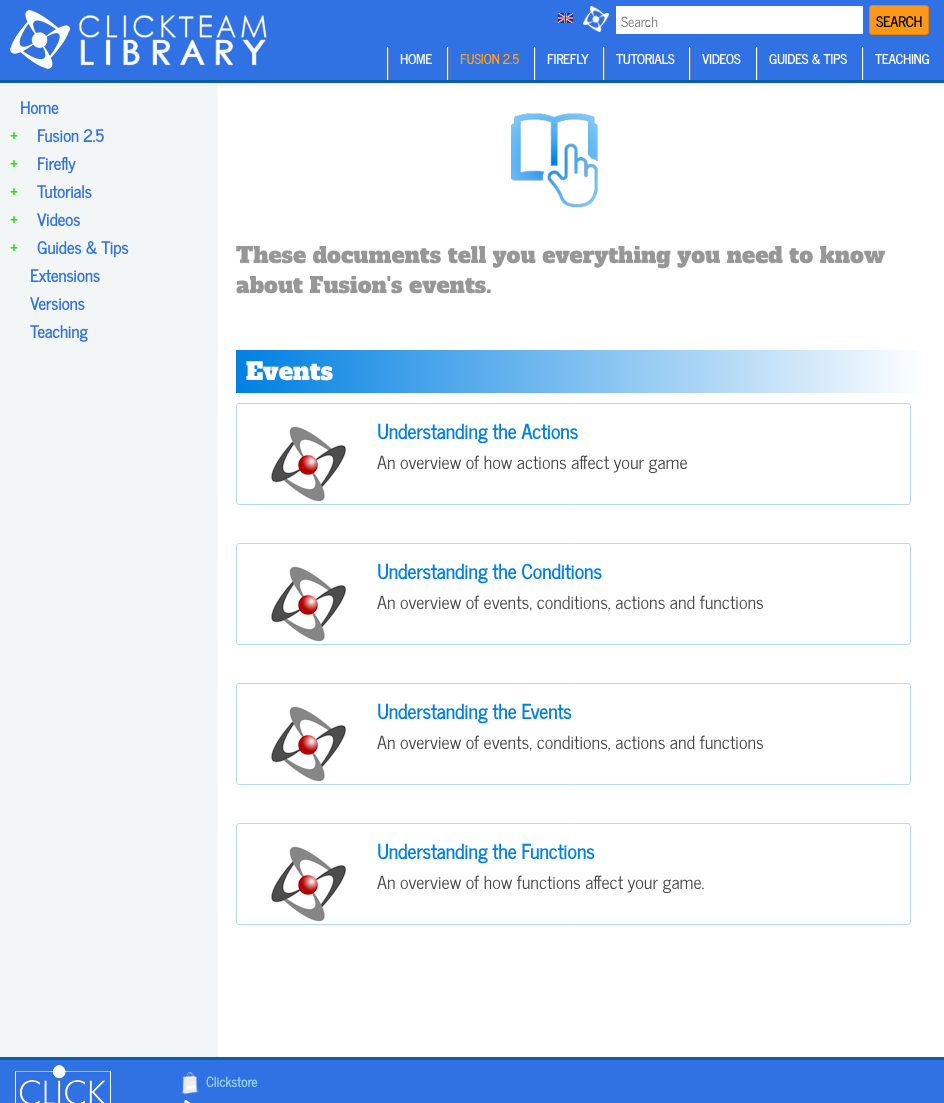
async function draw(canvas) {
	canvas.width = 944;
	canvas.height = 1103;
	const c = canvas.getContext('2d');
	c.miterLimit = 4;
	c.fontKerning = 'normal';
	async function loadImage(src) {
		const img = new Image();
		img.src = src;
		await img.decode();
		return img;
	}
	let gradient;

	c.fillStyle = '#fff';
	c.fillRect(0, 0, 944, 1103);
	c.fillStyle = '#3071e3';
	c.fillRect(0, 0, 944, 80);
	c.fillStyle = '#0a5ea2';
	c.fillRect(0, 80, 944, 3);
	c.drawImage(await loadImage('img1.png'), 10, 10, 257, 59);
	c.drawImage(await loadImage('img2.png'), 558, 13, 15, 10);
	c.drawImage(await loadImage('img3.png'), 583, 6, 26, 26);
	c.fillStyle = '#fff';
	c.fillRect(616, 6, 247, 28);
	c.font = '14px News Cycle';
	c.fillStyle = '#757575';
	c.fillText('Search', 621, 27);
	c.fillStyle = '#fb9819';
	c.beginPath();
	c.roundRect(869.5, 5.5, 59, 29, 2.5);
	c.fill();
	c.strokeStyle = '#ea8004';
	c.stroke();
	c.font = 'bold 14px News Cycle';
	c.fillStyle = '#000';
	c.fillText('SEARCH', 876, 27);
	c.drawImage(await loadImage('img4.png'), 387, 47, 2, 33);
	c.font = 'bold 13px News Cycle';
	c.fillStyle = '#fff';
	c.fillText('HOME', 400, 64);
	c.drawImage(await loadImage('img4.png'), 447, 47, 2, 33);
	c.fillStyle = '#ffa022';
	c.fillText('FUSION 2.5', 460, 64);
	c.drawImage(await loadImage('img4.png'), 534, 47, 2, 33);
	c.fillStyle = '#fff';
	c.fillText('FIREFLY', 547, 64);
	c.drawImage(await loadImage('img4.png'), 603, 47, 2, 33);
	c.fillText('TUTORIALS', 616, 64);
	c.drawImage(await loadImage('img4.png'), 689, 47, 2, 33);
	c.fillText('VIDEOS', 702, 64);
	c.drawImage(await loadImage('img4.png'), 756, 47, 2, 33);
	c.fillText('GUIDES & TIPS', 769, 64);
	c.drawImage(await loadImage('img4.png'), 862, 47, 2, 33);
	c.fillText('TEACHING', 875, 64);
	c.fillStyle = '#f3f6f7';
	c.fillRect(0, 83, 218, 974);
	c.font = 'bold 16.75px News Cycle';
	c.fillStyle = '#3071e3';
	c.fillText('Home', 20, 114);
	c.fillStyle = '#23eb01';
	c.fillText('+', 10, 142);
	c.fillStyle = '#3071e3';
	c.fillText('Fusion 2.5', 37, 142);
	c.fillStyle = '#23eb01';
	c.fillText('+', 10, 170);
	c.fillStyle = '#3071e3';
	c.fillText('Firefly', 37, 170);
	c.fillStyle = '#23eb01';
	c.fillText('+', 10, 198);
	c.fillStyle = '#3071e3';
	c.fillText('Tutorials', 37, 198);
	c.fillStyle = '#23eb01';
	c.fillText('+', 10, 226);
	c.fillStyle = '#3071e3';
	c.fillText('Videos', 37, 226);
	c.fillStyle = '#23eb01';
	c.fillText('+', 10, 254);
	c.fillStyle = '#3071e3';
	for (const [text, x, y] of [
		['Guides & Tips', 37, 254],
		['Extensions', 30, 282],
		['Versions', 30, 310],
		['Teaching', 30, 338],
	]) {
		c.fillText(text, x, y);
	}
	c.drawImage(await loadImage('img5.png'), 511, 113, 87, 95);
	c.font = '22px Alfa Slab One';
	c.fillStyle = '#979797';
	c.fillText('These documents tell you everything you need to know', 236, 263);
	c.fillText('about Fusion\'s events.', 236, 293);
	gradient = c.createLinearGradient(236, 372, 929, 372);
	gradient.addColorStop(0, '#0080e2');
	gradient.addColorStop(1, '#fff');
	c.fillStyle = gradient;
	c.fillRect(236, 350, 686, 43);
	c.font = '24px Alfa Slab One';
	c.fillStyle = '#fff';
	c.fillText('Events', 246, 380);
	c.beginPath();
	c.roundRect(236.5, 403.5, 674, 101, 2.5);
	c.strokeStyle = '#b6dbe6';
	c.stroke();
	c.drawImage(await loadImage('img6.png'), 271, 426, 76, 76);
	c.font = 'bold 19.7px News Cycle';
	c.fillStyle = '#0080e2';
	c.fillText('Understanding the Actions', 377, 439);
	c.font = '18px News Cycle';
	c.fillStyle = '#444';
	c.fillText('An overview of how actions affect your game', 377, 469);
	c.beginPath();
	c.roundRect(236.5, 543.5, 674, 101, 2.5);
	c.stroke();
	c.drawImage(await loadImage('img6.png'), 271, 566, 76, 76);
	c.font = 'bold 19.7px News Cycle';
	c.fillStyle = '#0080e2';
	c.fillText('Understanding the Conditions', 377, 579);
	c.font = '18px News Cycle';
	c.fillStyle = '#444';
	c.fillText('An overview of events, conditions, actions and functions', 377, 609);
	c.beginPath();
	c.roundRect(236.5, 683.5, 674, 101, 2.5);
	c.stroke();
	c.drawImage(await loadImage('img6.png'), 271, 706, 76, 76);
	c.font = 'bold 19.7px News Cycle';
	c.fillStyle = '#0080e2';
	c.fillText('Understanding the Events', 377, 719);
	c.font = '18px News Cycle';
	c.fillStyle = '#444';
	c.fillText('An overview of events, conditions, actions and functions', 377, 749);
	c.beginPath();
	c.roundRect(236.5, 823.5, 674, 101, 2.5);
	c.stroke();
	c.drawImage(await loadImage('img6.png'), 271, 846, 76, 76);
	c.font = 'bold 19.7px News Cycle';
	c.fillStyle = '#0080e2';
	c.fillText('Understanding the Functions', 377, 859);
	c.font = '18px News Cycle';
	c.fillStyle = '#444';
	c.fillText('An overview of how functions affect your game.', 377, 889);
	c.fillStyle = '#3071e3';
	c.fillRect(0, 1060, 944, 43);
	c.fillStyle = '#0a5ea2';
	c.fillRect(0, 1057, 944, 3);
	c.drawImage(await loadImage('img7.png'), 15, 1065, 96, 38);
	c.drawImage(await loadImage('img8.png'), 181, 1072, 18, 23);
	c.font = 'bold 13.5px News Cycle';
	c.fillStyle = '#95d3ff';
	c.fillText('Clickstore', 206, 1087);
	c.drawImage(await loadImage('img9.png'), 184, 1100, 7, 3);
}

draw(document.querySelector('canvas'));
